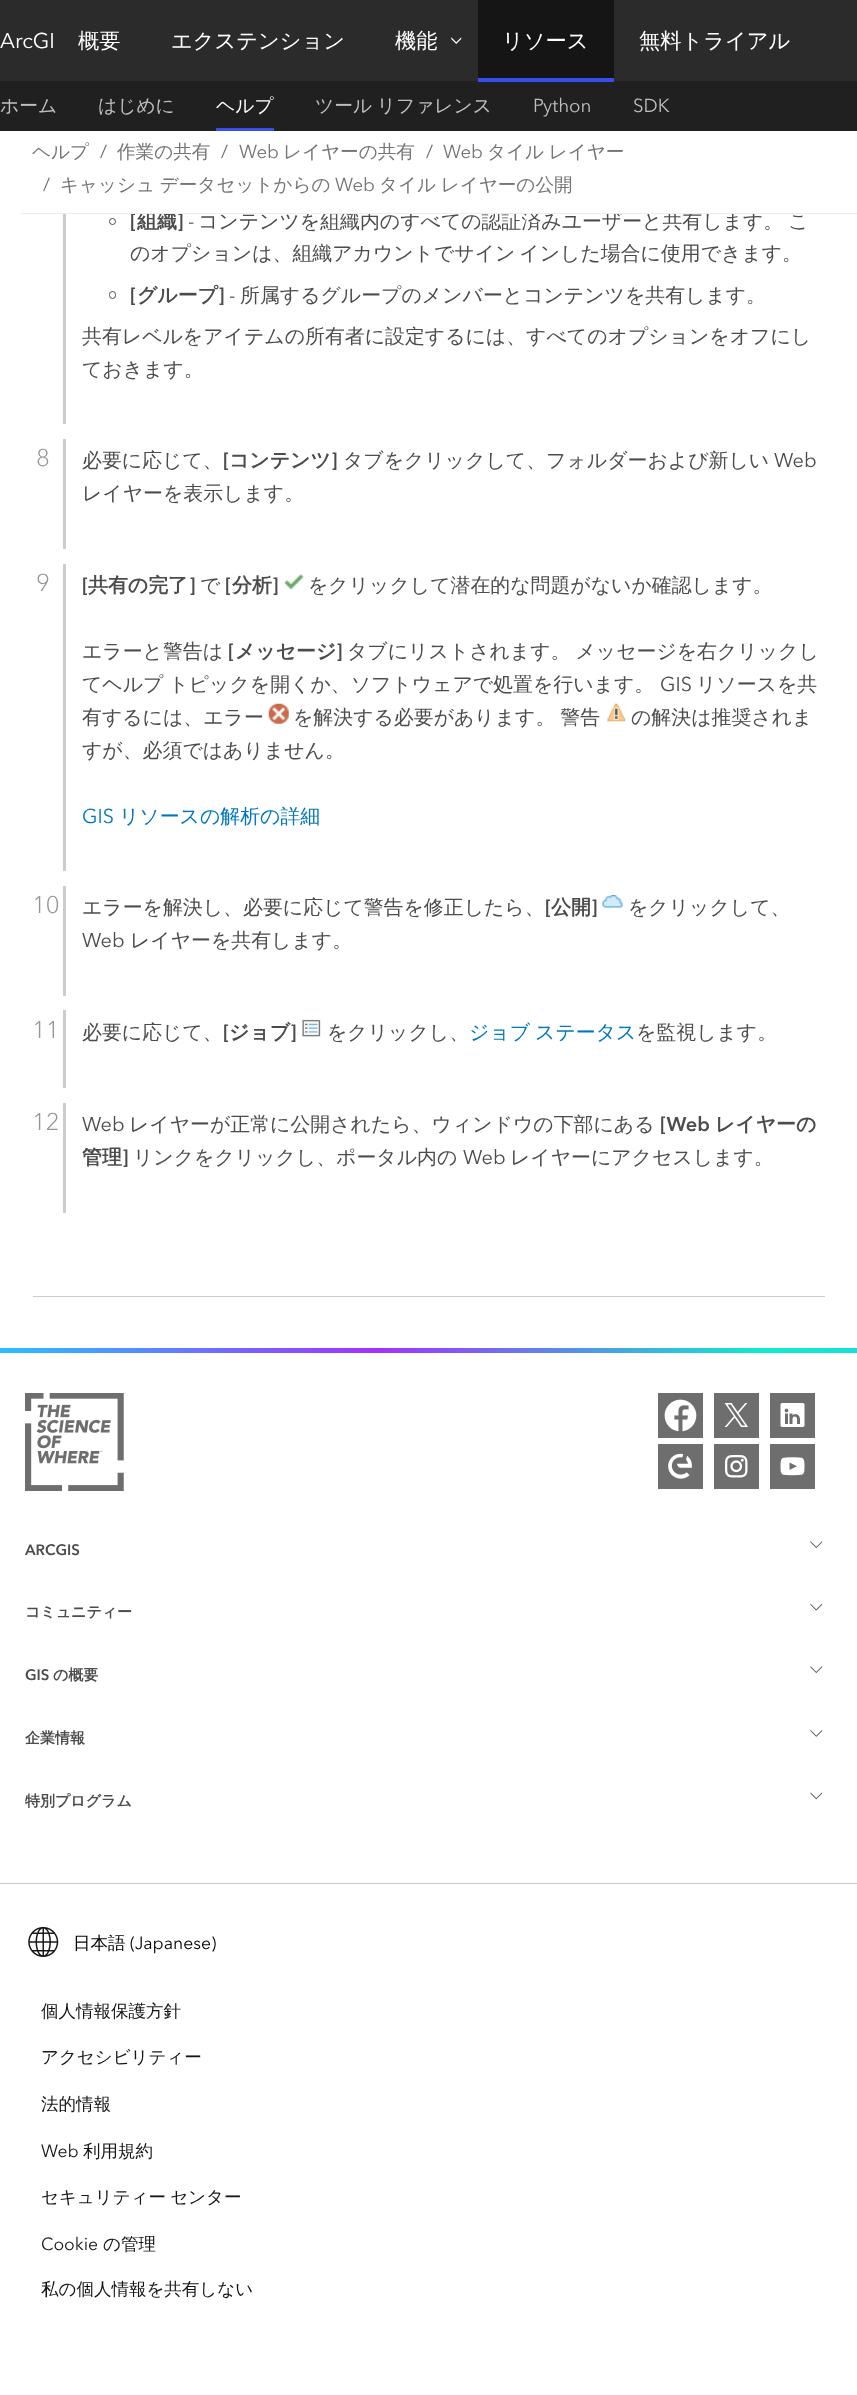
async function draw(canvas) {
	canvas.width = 857;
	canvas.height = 2395;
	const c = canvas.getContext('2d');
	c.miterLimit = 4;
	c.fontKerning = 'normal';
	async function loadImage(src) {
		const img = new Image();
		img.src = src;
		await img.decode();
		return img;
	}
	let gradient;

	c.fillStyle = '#fff';
	c.fillRect(0, 0, 857, 2395);
	c.fillStyle = '#2b2b2b';
	c.fillRect(0, 0, 857, 81);
	c.font = '21.25px Avenir Next';
	c.fillStyle = '#fff';
	c.fillText('ArcGI', 0, 48);
	c.font = '500 21.25px WenQuanYi Zen Hei';
	for (const [text, x, y] of [
		['概要', 78, 48],
		['エクステンション', 171, 48],
		['機能', 395, 48],
	]) {
		c.fillText(text, x, y);
	}
	c.drawImage(await loadImage('img1.png'), 451, 37, 11, 7);
	for (const [x, y, w, h, color] of [
		[478, 0, 136, 78, '#151515'],
		[0, 81, 857, 50, '#202020'],
		[478, 78, 136, 4, '#394eee'],
	]) {
		c.fillStyle = color;
		c.fillRect(x, y, w, h);
	}
	c.fillStyle = '#fff';
	c.fillText('リソース', 502, 48);
	c.fillText('無料トライアル', 639, 48);
	c.font = '500 18.75px WenQuanYi Zen Hei';
	c.fillStyle = '#bfbfbf';
	c.fillText('ホーム', 0, 112);
	c.fillText('はじめに', 98, 112);
	c.fillStyle = '#394eee';
	c.fillRect(216, 128, 58, 3);
	c.fillStyle = '#fff';
	c.fillText('ヘルプ', 216, 112);
	c.wordSpacing = '-1px';
	c.fillStyle = '#bfbfbf';
	c.fillText('ツール リファレンス', 315, 112);
	c.wordSpacing = '0px';
	c.font = '18.75px Avenir Next';
	c.fillText('Python', 533, 112);
	c.fillText('SDK', 633, 112);
	c.font = 'bold 19.9px WenQuanYi Zen Hei';
	c.fillStyle = '#4c4c4c';
	c.fillText('組織', 137, 228);
	c.wordSpacing = '-1px';
	c.font = '500 19.9px WenQuanYi Zen Hei';
	c.fillText('コンテンツを組織内のすべての認証済みユーザーと共有します。 こ', 198, 228);
	c.fillStyle = '#fff';
	c.fillRect(140, 211, 554, 2);
	c.wordSpacing = '0px';
	c.font = 'bold 19.9px Avenir Next';
	c.fillStyle = '#4c4c4c';
	c.fillText('[', 130, 228);
	c.fillText(']', 177, 228);
	c.fillStyle = '#ededed';
	c.fillRect(21, 213, 836, 1);
	c.font = '500 18.6px WenQuanYi Zen Hei';
	c.fillStyle = '#757575';
	c.fillText('ヘルプ', 32, 158);
	c.font = '18.6px Avenir Next';
	c.fillStyle = '#6e6e6e';
	c.fillText('/', 100, 158);
	c.font = '500 18.6px WenQuanYi Zen Hei';
	c.fillStyle = '#757575';
	c.fillText('作業の共有', 117, 158);
	c.font = '18.6px Avenir Next';
	c.fillStyle = '#6e6e6e';
	c.fillText('/', 221, 158);
	c.fillStyle = '#757575';
	c.fillText('Web', 239, 158);
	c.font = '500 18.6px WenQuanYi Zen Hei';
	c.fillText('レイヤーの共有', 283, 158);
	c.font = '18.6px Avenir Next';
	c.fillStyle = '#6e6e6e';
	c.fillText('/', 426, 158);
	c.fillStyle = '#757575';
	c.fillText('Web', 443, 158);
	c.wordSpacing = '-1px';
	c.font = '500 18.6px WenQuanYi Zen Hei';
	c.fillText('タイル レイヤー', 487, 158);
	c.wordSpacing = '0px';
	c.font = '18.6px Avenir Next';
	c.fillStyle = '#6e6e6e';
	c.fillText('/', 43, 191);
	c.wordSpacing = '-1px';
	c.font = '500 18.6px WenQuanYi Zen Hei';
	c.fillStyle = '#757575';
	c.fillText('キャッシュ データセットからの', 60, 191);
	c.wordSpacing = '0px';
	c.font = '18.6px Avenir Next';
	c.fillText('Web', 335, 191);
	c.wordSpacing = '-1px';
	c.font = '500 18.6px WenQuanYi Zen Hei';
	c.fillText('タイル レイヤーの公開', 379, 191);
	c.fillStyle = '#ccc';
	c.fillRect(63, 214, 3, 210);
	c.beginPath();
	c.arc(112.5, 221.5, 3, 0, 2 * Math.PI);
	c.strokeStyle = '#4c4c4c';
	c.stroke();
	c.wordSpacing = '0px';
	c.font = '19.9px Avenir Next';
	c.fillStyle = '#4c4c4c';
	c.fillText('-', 188, 228);
	c.wordSpacing = '-2px';
	c.font = '500 19.9px WenQuanYi Zen Hei';
	c.fillText('のオプションは、組織アカウントでサイン インした場合に使用できます。', 130, 260);
	c.beginPath();
	c.roundRect(109.5, 291.5, 6, 7, 3);
	c.stroke();
	c.wordSpacing = '0px';
	c.font = 'bold 19.9px Avenir Next';
	c.fillText('[', 130, 302);
	c.font = 'bold 19.9px WenQuanYi Zen Hei';
	c.fillText('グループ', 137, 302);
	c.font = 'bold 19.9px Avenir Next';
	c.fillText(']', 218, 302);
	c.font = '19.9px Avenir Next';
	c.fillText('-', 229, 302);
	c.font = '500 19.9px WenQuanYi Zen Hei';
	for (const [text, x, y] of [
		['所属するグループのメンバーとコンテンツを共有します。', 240, 302],
		['共有レベルをアイテムの所有者に設定するには、すべてのオプションをオフにし', 82, 343],
		['ておきます。', 82, 376],
	]) {
		c.fillText(text, x, y);
	}
	c.fillStyle = '#ccc';
	c.fillRect(63, 439, 3, 110);
	c.font = '300 24px Avenir Next';
	c.fillStyle = '#959595';
	c.fillText('8', 36, 466);
	c.font = '500 19.9px WenQuanYi Zen Hei';
	c.fillStyle = '#4c4c4c';
	c.fillText('必要に応じて、', 82, 467);
	c.font = 'bold 19.9px Avenir Next';
	c.fillText('[', 223, 467);
	c.font = 'bold 19.9px WenQuanYi Zen Hei';
	c.fillText('コンテンツ', 229, 467);
	c.font = 'bold 19.9px Avenir Next';
	c.fillText(']', 331, 467);
	c.font = '500 19.9px WenQuanYi Zen Hei';
	c.fillText('タブをクリックして、フォルダーおよび新しい', 343, 467);
	c.font = '19.9px Avenir Next';
	c.fillText('Web', 774, 467);
	c.font = '500 19.9px WenQuanYi Zen Hei';
	c.fillText('レイヤーを表示します。', 82, 500);
	c.fillStyle = '#ccc';
	c.fillRect(63, 564, 3, 307);
	c.font = '300 24px Avenir Next';
	c.fillStyle = '#959595';
	c.fillText('9', 36, 591);
	c.font = 'bold 19.9px Avenir Next';
	c.fillStyle = '#4c4c4c';
	c.fillText('[', 82, 592);
	c.font = 'bold 19.9px WenQuanYi Zen Hei';
	c.fillText('共有の完了', 88, 592);
	c.font = 'bold 19.9px Avenir Next';
	c.fillText(']', 189, 592);
	c.font = '500 19.9px WenQuanYi Zen Hei';
	c.fillText('で', 200, 592);
	c.font = 'bold 19.9px Avenir Next';
	c.fillText('[', 225, 592);
	c.font = 'bold 19.9px WenQuanYi Zen Hei';
	c.fillText('分析', 232, 592);
	c.font = 'bold 19.9px Avenir Next';
	c.fillText(']', 272, 592);
	c.drawImage(await loadImage('img2.png'), 284, 573, 20, 17);
	c.font = '500 19.9px WenQuanYi Zen Hei';
	c.fillText('をクリックして潜在的な問題がないか確認します。', 308, 592);
	c.fillText('エラーと警告は', 82, 658);
	c.font = 'bold 19.9px Avenir Next';
	c.fillText('[', 228, 658);
	c.font = 'bold 19.9px WenQuanYi Zen Hei';
	c.fillText('メッセージ', 235, 658);
	c.font = 'bold 19.9px Avenir Next';
	c.fillText(']', 336, 658);
	c.wordSpacing = '-1px';
	c.font = '500 19.9px WenQuanYi Zen Hei';
	c.fillText('タブにリストされます。 メッセージを右クリックし', 347, 658);
	c.fillText('てヘルプ トピックを開くか、ソフトウェアで処置を行います。', 82, 691);
	c.wordSpacing = '0px';
	c.font = '19.9px Avenir Next';
	c.fillText('GIS', 660, 691);
	c.font = '500 19.9px WenQuanYi Zen Hei';
	c.fillText('リソースを共', 696, 691);
	c.fillText('有するには、エラー', 82, 724);
	c.drawImage(await loadImage('img3.png'), 268, 703, 21, 21);
	c.wordSpacing = '-1px';
	c.fillText('を解決する必要があります。 警告', 293, 724);
	c.drawImage(await loadImage('img4.png'), 607, 703, 19, 19);
	c.wordSpacing = '0px';
	c.fillText('の解決は推奨されま', 631, 724);
	c.fillText('すが、必須ではありません。', 82, 757);
	c.font = '19.9px Avenir Next';
	c.fillStyle = '#0076bc';
	c.fillText('GIS', 82, 823);
	c.font = '500 19.9px WenQuanYi Zen Hei';
	c.fillText('リソースの解析の詳細', 119, 823);
	c.fillStyle = '#ccc';
	c.fillRect(63, 886, 3, 110);
	c.font = '300 24px Avenir Next';
	c.fillStyle = '#959595';
	c.fillText('10', 32, 913);
	c.font = '500 19.9px WenQuanYi Zen Hei';
	c.fillStyle = '#4c4c4c';
	c.fillText('エラーを解決し、必要に応じて警告を修正したら、', 82, 914);
	c.font = 'bold 19.9px Avenir Next';
	c.fillText('[', 545, 914);
	c.font = 'bold 19.9px WenQuanYi Zen Hei';
	c.fillText('公開', 551, 914);
	c.font = 'bold 19.9px Avenir Next';
	c.fillText(']', 591, 914);
	c.drawImage(await loadImage('img5.png'), 602, 895, 21, 13);
	c.font = '500 19.9px WenQuanYi Zen Hei';
	c.fillText('をクリックして、', 628, 914);
	c.font = '19.9px Avenir Next';
	c.fillText('Web', 82, 947);
	c.font = '500 19.9px WenQuanYi Zen Hei';
	c.fillText('レイヤーを共有します。', 130, 947);
	c.fillStyle = '#ccc';
	c.fillRect(63, 1010, 3, 78);
	c.font = '300 24px Avenir Next';
	c.fillStyle = '#959595';
	c.fillText('11', 32, 1038);
	c.font = '500 19.9px WenQuanYi Zen Hei';
	c.fillStyle = '#4c4c4c';
	c.fillText('必要に応じて、', 82, 1039);
	c.font = 'bold 19.9px Avenir Next';
	c.fillText('[', 223, 1039);
	c.font = 'bold 19.9px WenQuanYi Zen Hei';
	c.fillText('ジョブ', 229, 1039);
	c.font = 'bold 19.9px Avenir Next';
	c.fillText(']', 290, 1039);
	c.drawImage(await loadImage('img6.png'), 302, 1019, 19, 18);
	c.font = '500 19.9px WenQuanYi Zen Hei';
	c.fillText('をクリックし、', 327, 1039);
	c.wordSpacing = '-1px';
	c.fillStyle = '#0076bc';
	c.fillText('ジョブ ステータス', 469, 1039);
	c.wordSpacing = '0px';
	c.fillStyle = '#4c4c4c';
	c.fillText('を監視します。', 636, 1039);
	c.fillStyle = '#ccc';
	c.fillRect(63, 1103, 3, 110);
	c.font = '300 24px Avenir Next';
	c.fillStyle = '#959595';
	c.fillText('12', 32, 1130);
	c.font = '19.9px Avenir Next';
	c.fillStyle = '#4c4c4c';
	c.fillText('Web', 82, 1131);
	c.font = '500 19.9px WenQuanYi Zen Hei';
	c.fillText('レイヤーが正常に公開されたら、ウィンドウの下部にある', 129, 1131);
	c.font = 'bold 19.9px Avenir Next';
	c.fillText('[Web', 660, 1131);
	c.font = 'bold 19.9px WenQuanYi Zen Hei';
	c.fillText('レイヤーの', 715, 1131);
	c.fillText('管理', 82, 1164);
	c.font = 'bold 19.9px Avenir Next';
	c.fillText(']', 122, 1164);
	c.font = '500 19.9px WenQuanYi Zen Hei';
	c.fillText('リンクをクリックし、ポータル内の', 133, 1164);
	c.font = '19.9px Avenir Next';
	c.fillText('Web', 463, 1164);
	c.font = '500 19.9px WenQuanYi Zen Hei';
	c.fillText('レイヤーにアクセスします。', 510, 1164);
	c.fillStyle = '#ccc';
	c.fillRect(33, 1296, 792, 1);
	gradient = c.createLinearGradient(0, 1350, 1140, 1350);
	gradient.addColorStop(0, '#29bfff');
	gradient.addColorStop(0.33, '#a231ff');
	gradient.addColorStop(0.67, '#0deccd');
	gradient.addColorStop(1, '#29bfff');
	c.fillStyle = gradient;
	c.fillRect(0, 1348, 857, 5);
	c.drawImage(await loadImage('img7.png'), 25, 1393, 99, 98);
	c.fillStyle = '#6e6e6e';
	c.fillRect(658, 1393, 45, 45);
	c.drawImage(await loadImage('img8.png'), 664, 1399, 33, 33);
	c.fillRect(714, 1393, 45, 45);
	c.drawImage(await loadImage('img9.png'), 724, 1403, 24, 24);
	c.fillRect(770, 1393, 45, 45);
	c.drawImage(await loadImage('img10.png'), 780, 1403, 25, 24);
	c.fillRect(658, 1444, 45, 45);
	c.drawImage(await loadImage('img11.png'), 668, 1453, 24, 26);
	c.fillRect(714, 1444, 45, 45);
	c.drawImage(await loadImage('img12.png'), 725, 1455, 23, 23);
	c.fillRect(770, 1444, 45, 45);
	c.drawImage(await loadImage('img13.png'), 780, 1457, 25, 19);
	c.font = 'bold 15px "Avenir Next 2"';
	c.fillStyle = '#4c4c4c';
	c.fillText('ARCGIS', 25, 1555);
	c.drawImage(await loadImage('img14.png'), 810, 1541, 13, 7);
	c.font = 'bold 15px WenQuanYi Zen Hei';
	c.fillText('コミュニティー', 25, 1617);
	c.drawImage(await loadImage('img15.png'), 810, 1603, 13, 8);
	c.font = 'bold 15px "Avenir Next 2"';
	c.fillText('GIS', 25, 1680);
	c.font = 'bold 15px WenQuanYi Zen Hei';
	c.fillText('の概要', 53, 1680);
	c.drawImage(await loadImage('img14.png'), 810, 1666, 13, 7);
	c.fillText('企業情報', 25, 1743);
	c.drawImage(await loadImage('img16.png'), 810, 1730, 13, 7);
	c.fillText('特別プログラム', 25, 1806);
	c.drawImage(await loadImage('img17.png'), 810, 1792, 13, 8);
	c.fillStyle = '#cacaca';
	c.fillRect(0, 1883, 857, 1);
	c.drawImage(await loadImage('img18.png'), 28, 1926, 31, 31);
	c.font = '500 17.5px WenQuanYi Zen Hei';
	c.fillStyle = '#000';
	c.fillText('日本語', 73, 1949);
	c.font = '17.5px "Avenir Next 2"';
	c.fillText('(Japanese)', 130, 1949);
	c.font = '500 17.5px WenQuanYi Zen Hei';
	c.fillStyle = '#151515';
	for (const [text, x, y] of [
		['個人情報保護方針', 41, 2017],
		['アクセシビリティー', 41, 2063],
		['法的情報', 41, 2110],
	]) {
		c.fillText(text, x, y);
	}
	c.font = '17.5px "Avenir Next 2"';
	c.fillText('Web', 41, 2157);
	c.font = '500 17.5px WenQuanYi Zen Hei';
	c.fillText('利用規約', 83, 2157);
	c.wordSpacing = '-1px';
	c.fillText('セキュリティー センター', 41, 2203);
	c.wordSpacing = '0px';
	c.font = '17.5px "Avenir Next 2"';
	c.fillText('Cookie', 41, 2250);
	c.font = '500 17.5px WenQuanYi Zen Hei';
	c.fillText('の管理', 103, 2250);
	c.fillText('私の個人情報を共有しない', 41, 2295);
}

draw(document.querySelector('canvas'));
